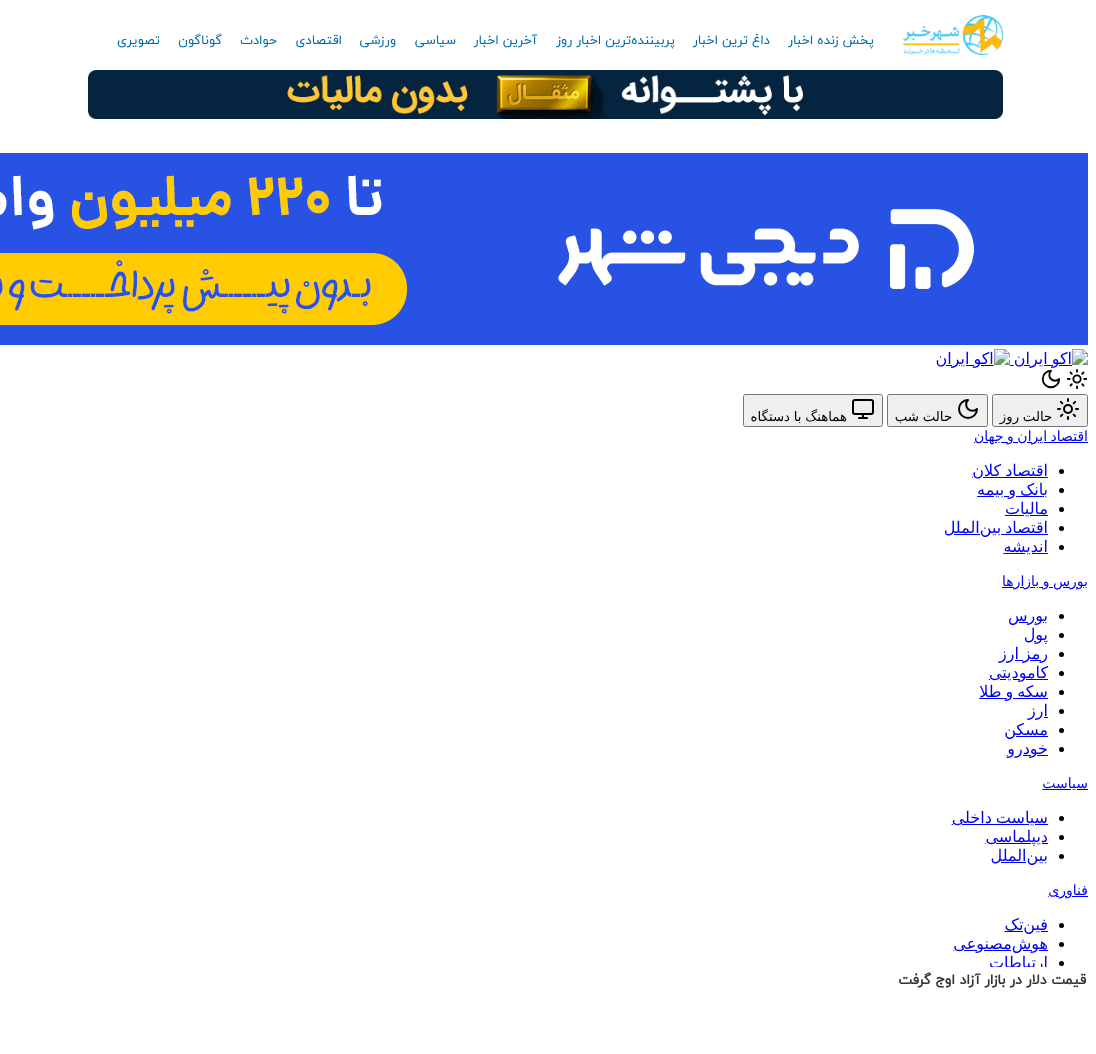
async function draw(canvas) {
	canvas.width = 1096;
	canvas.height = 1054;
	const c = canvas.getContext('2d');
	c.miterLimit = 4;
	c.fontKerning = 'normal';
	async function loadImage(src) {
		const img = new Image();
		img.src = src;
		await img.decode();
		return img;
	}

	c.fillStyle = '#fff';
	c.fillRect(0, 0, 1096, 1054);
	c.drawImage(await loadImage('img1.png'), 903, 15, 100, 40);
	c.direction = 'rtl';
	c.font = '13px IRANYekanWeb';
	c.fillStyle = '#006aa9';
	for (const [text, x, y] of [
		['پخش زنده اخبار', 874, 44],
		['داغ ترین اخبار', 770, 44],
		['پربیننده‌ترین اخبار روز', 675, 44],
		['آخرین اخبار', 537, 44],
		['سیاسی', 456, 44],
		['ورزشی', 396, 44],
		['اقتصادی', 342, 44],
		['حوادث', 277, 44],
		['گوناگون', 222, 44],
		['تصویری', 160, 44],
	]) {
		c.fillText(text, x, y);
	}
	c.drawImage(await loadImage('img2.png'), 88, 70, 915, 49);
	c.drawImage(await loadImage('img3.png'), 0, 153, 1088, 814);
	c.font = 'bold 14px IRANYekanWeb';
	c.fillStyle = '#333';
	c.fillText('قیمت دلار در بازار آزاد اوج گرفت', 1086, 984);
}

draw(document.querySelector('canvas'));
